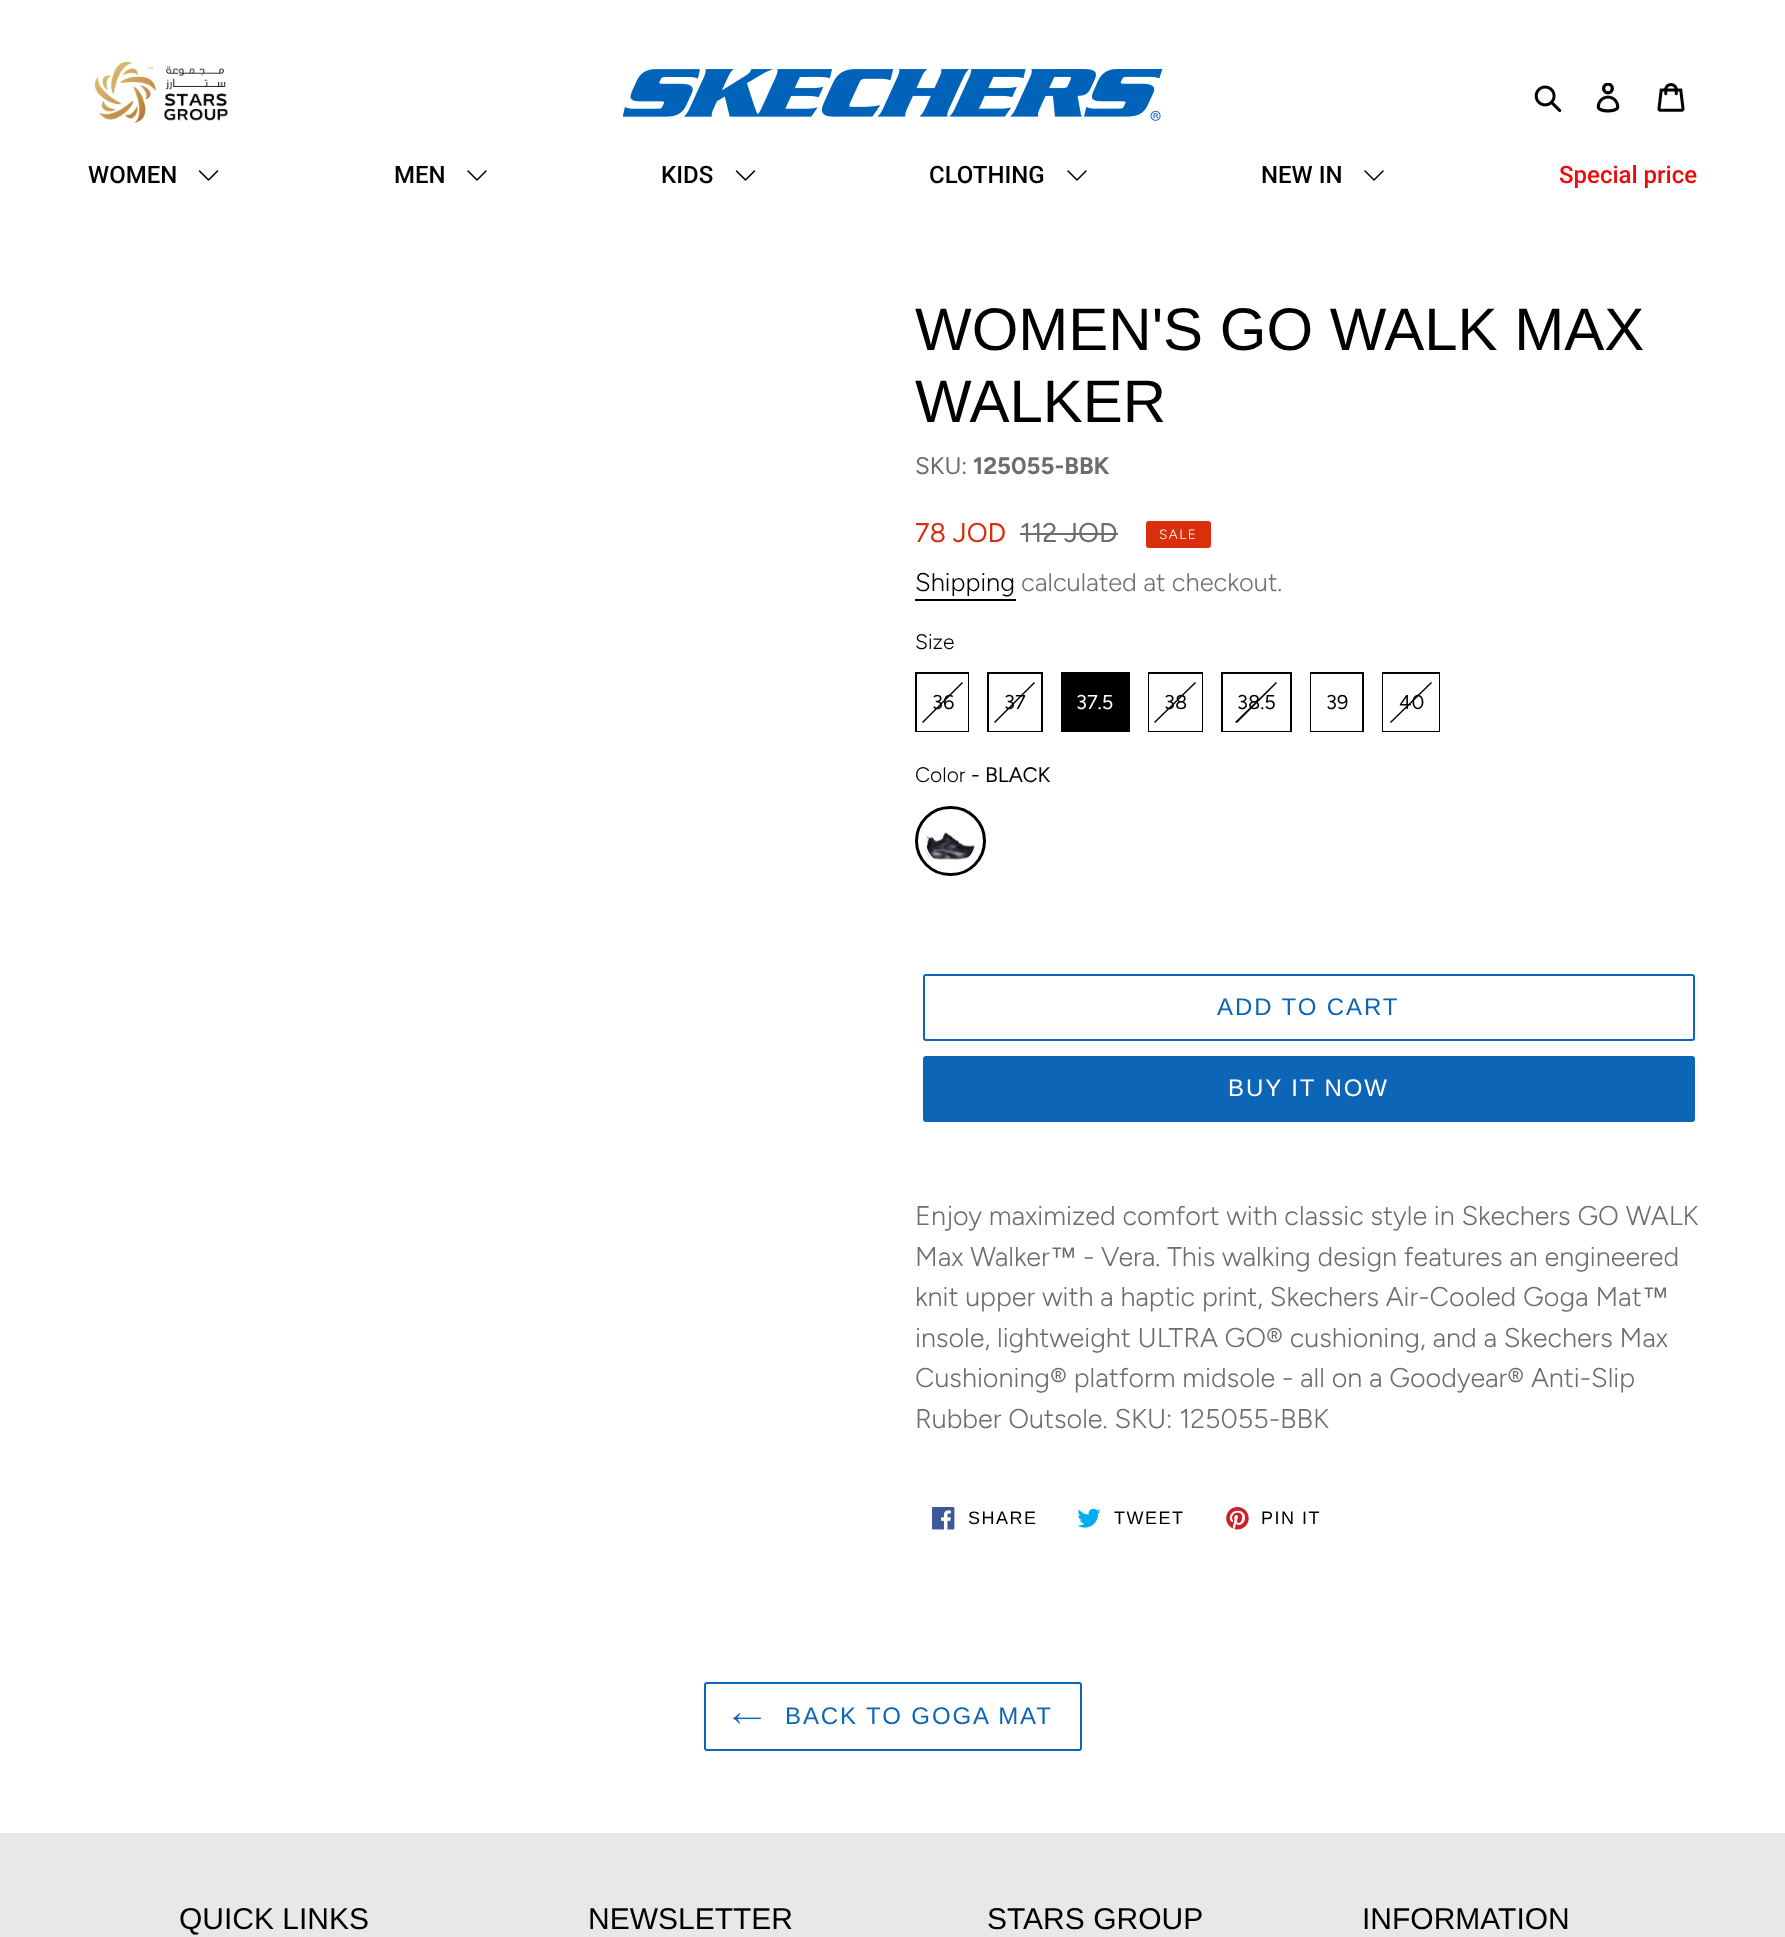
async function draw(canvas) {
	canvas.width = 1785;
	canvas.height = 1937;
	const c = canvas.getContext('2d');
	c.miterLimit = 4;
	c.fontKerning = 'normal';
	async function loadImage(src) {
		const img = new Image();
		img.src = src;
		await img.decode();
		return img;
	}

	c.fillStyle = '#fff';
	c.fillRect(0, 0, 1785, 1937);
	c.drawImage(await loadImage('img1.png'), 94, 61, 134, 62);
	c.drawImage(await loadImage('img2.png'), 623, 69, 540, 52);
	c.drawImage(await loadImage('img3.png'), 1534, 85, 28, 28);
	c.drawImage(await loadImage('img4.png'), 1596, 83, 24, 30);
	c.drawImage(await loadImage('img5.png'), 1657, 83, 28, 29);
	c.font = '500 24px Roboto';
	c.fillStyle = '#000';
	c.fillText('WOMEN', 88, 183);
	c.drawImage(await loadImage('img6.png'), 198, 170, 21, 11);
	c.fillText('MEN', 394, 183);
	c.drawImage(await loadImage('img7.png'), 467, 170, 20, 11);
	c.fillText('KIDS', 661, 183);
	c.drawImage(await loadImage('img6.png'), 735, 170, 21, 11);
	c.fillText('CLOTHING', 929, 183);
	c.drawImage(await loadImage('img7.png'), 1067, 170, 20, 11);
	c.fillText('NEW IN', 1261, 183);
	c.drawImage(await loadImage('img7.png'), 1364, 170, 20, 11);
	c.fillStyle = '#ef0a0a';
	c.fillText('Special price', 1559, 183);
	c.font = '60px Liberation Sans';
	c.fillStyle = '#000';
	c.fillText('WOMEN\'S GO WALK MAX', 915, 350);
	c.fillText('WALKER', 915, 422);
	c.font = '24px Figtree';
	c.fillStyle = '#6d6d6d';
	c.fillText('SKU:', 915, 474);
	c.font = 'bold 24px Figtree';
	c.fillText('125055-BBK', 973, 474);
	c.font = '27px Figtree';
	c.fillStyle = '#da2f0c';
	c.fillText('78 JOD', 915, 542);
	c.fillStyle = '#6d6d6d';
	c.fillText('112 JOD', 1020, 542);
	c.fillRect(1020, 533, 98, 2);
	c.fillStyle = '#da2f0c';
	c.beginPath();
	c.roundRect(1147, 522, 63, 25, 2);
	c.fill();
	c.strokeStyle = '#da2f0c';
	c.lineWidth = 2;
	c.stroke();
	c.letterSpacing = '1.5px';
	c.font = '300 13.5px Figtree';
	c.fillStyle = '#fff';
	c.fillText('SALE', 1159, 539);
	c.letterSpacing = '0px';
	c.font = '300 25.5px Figtree';
	c.fillStyle = '#000';
	c.fillText('Shipping', 915, 591);
	c.fillRect(915, 599, 101, 2);
	c.fillStyle = '#6d6d6d';
	c.fillText('calculated at checkout.', 1021, 591);
	c.font = '300 21px Figtree';
	c.fillStyle = '#000';
	c.fillText('Size', 915, 649);
	c.strokeStyle = '#000';
	c.strokeRect(916, 673, 52, 58);
	c.fillStyle = '#fff';
	c.fillRect(917, 674, 51, 57);
	c.fillStyle = '#000';
	c.beginPath();
	c.moveTo(962, 682);
	c.lineTo(963, 683);
	c.lineTo(923, 723);
	c.lineTo(922, 722);
	c.closePath();
	c.fill();
	c.font = '20px Figtree';
	c.fillText('36', 932, 709);
	c.strokeRect(988, 673, 54, 58);
	c.beginPath();
	c.moveTo(1034, 682);
	c.lineTo(1035, 683);
	c.lineTo(995, 723);
	c.lineTo(994, 722);
	c.closePath();
	c.fill();
	c.fillStyle = '#fff';
	c.fillRect(989, 730, 52, 1);
	c.fillStyle = '#000';
	c.fillText('37', 1004, 709);
	c.strokeRect(1062, 673, 67, 58);
	c.fillRect(1063, 674, 65, 56);
	c.fillStyle = '#fff';
	c.fillText('37.5', 1076, 709);
	c.strokeRect(1149, 673, 53, 58);
	c.fillRect(1149, 674, 53, 57);
	c.fillStyle = '#000';
	c.beginPath();
	c.moveTo(1195, 682);
	c.lineTo(1196, 683);
	c.lineTo(1155, 723);
	c.lineTo(1154, 722);
	c.closePath();
	c.fill();
	c.fillText('38', 1164, 709);
	c.strokeRect(1222, 673, 69, 58);
	c.beginPath();
	c.moveTo(1276, 682);
	c.lineTo(1277, 683);
	c.lineTo(1237, 723);
	c.lineTo(1235, 722);
	c.closePath();
	c.fill();
	c.fillStyle = '#fff';
	c.fillRect(1223, 730, 67, 1);
	c.fillStyle = '#000';
	c.fillText('38.5', 1237, 709);
	c.strokeRect(1311, 673, 52, 58);
	c.fillStyle = '#fff';
	c.fillRect(1311, 674, 51, 57);
	c.fillStyle = '#000';
	c.fillText('39', 1326, 709);
	c.strokeRect(1383, 673, 56, 58);
	c.fillStyle = '#fff';
	c.fillRect(1383, 674, 56, 57);
	c.fillStyle = '#000';
	c.beginPath();
	c.moveTo(1431, 682);
	c.lineTo(1432, 683);
	c.lineTo(1391, 723);
	c.lineTo(1390, 722);
	c.closePath();
	c.fill();
	c.fillText('40', 1399, 709);
	c.font = '300 21px Figtree';
	c.fillText('Color', 915, 782);
	c.font = '21px Figtree';
	c.fillText('- BLACK', 971, 782);
	c.beginPath();
	c.roundRect(916.5, 807.5, 68, 67, 33.5);
	c.lineWidth = 3;
	c.stroke();
	c.drawImage(await loadImage('img8.png'), 925, 832, 50, 28);
	c.beginPath();
	c.roundRect(925, 816, 51, 50, 25);
	c.strokeStyle = '#fff';
	c.lineWidth = 2;
	c.stroke();
	c.beginPath();
	c.roundRect(924, 975, 770, 65, 2);
	c.strokeStyle = '#0d65b8';
	c.stroke();
	c.letterSpacing = '1.9px';
	c.font = '24px Liberation Sans';
	c.fillStyle = '#0d65b8';
	c.fillText('ADD TO CART', 1217, 1015);
	c.beginPath();
	c.roundRect(923, 1056, 772, 66, 3);
	c.fill();
	c.fillStyle = '#fff';
	c.fillText('BUY IT NOW', 1228, 1096);
	c.letterSpacing = '0px';
	c.font = '300 27px Figtree';
	c.fillStyle = '#6d6d6d';
	c.fillText('Enjoy maximized comfort with classic style in Skechers GO WALK', 915, 1225);
	c.fillText('Max Walker', 915, 1266);
	c.font = '27px Liberation Sans';
	c.fillText('™', 1050, 1266);
	c.font = '300 27px Figtree';
	c.fillText('- Vera. This walking design features an engineered', 1083, 1266);
	c.fillText('knit upper with a haptic print, Skechers Air-Cooled Goga Mat', 915, 1306);
	c.font = '27px Liberation Sans';
	c.fillText('™', 1642, 1306);
	c.font = '300 27px Figtree';
	for (const [text, x, y] of [
		['insole, lightweight ULTRA GO® cushioning, and a Skechers Max', 915, 1347],
		['Cushioning® platform midsole - all on a Goodyear® Anti-Slip', 915, 1387],
		['Rubber Outsole. SKU: 125055-BBK', 915, 1428],
	]) {
		c.fillText(text, x, y);
	}
	c.drawImage(await loadImage('img9.png'), 932, 1507, 23, 23);
	c.letterSpacing = '1.5px';
	c.font = '18px Liberation Sans';
	c.fillStyle = '#000';
	c.fillText('SHARE', 968, 1524);
	c.drawImage(await loadImage('img10.png'), 1077, 1508, 24, 20);
	c.fillText('TWEET', 1114, 1524);
	c.drawImage(await loadImage('img11.png'), 1226, 1507, 23, 23);
	c.fillText('PIN IT', 1261, 1524);
	c.beginPath();
	c.roundRect(705, 1683, 376, 67, 2);
	c.stroke();
	c.drawImage(await loadImage('img12.png'), 733, 1713, 28, 11);
	c.letterSpacing = '1.9px';
	c.font = '24px Liberation Sans';
	c.fillStyle = '#0d65b8';
	c.fillText('BACK TO GOGA MAT', 785, 1724);
	c.fillStyle = '#e8e8e8';
	c.fillRect(0, 1833, 1785, 104);
	c.letterSpacing = '0px';
	c.font = '30px Liberation Sans';
	c.fillStyle = '#000';
	for (const [text, x, y] of [
		['QUICK LINKS', 179, 1929],
		['NEWSLETTER', 588, 1929],
		['STARS GROUP', 987, 1929],
		['INFORMATION', 1362, 1929],
	]) {
		c.fillText(text, x, y);
	}
}

draw(document.querySelector('canvas'));
